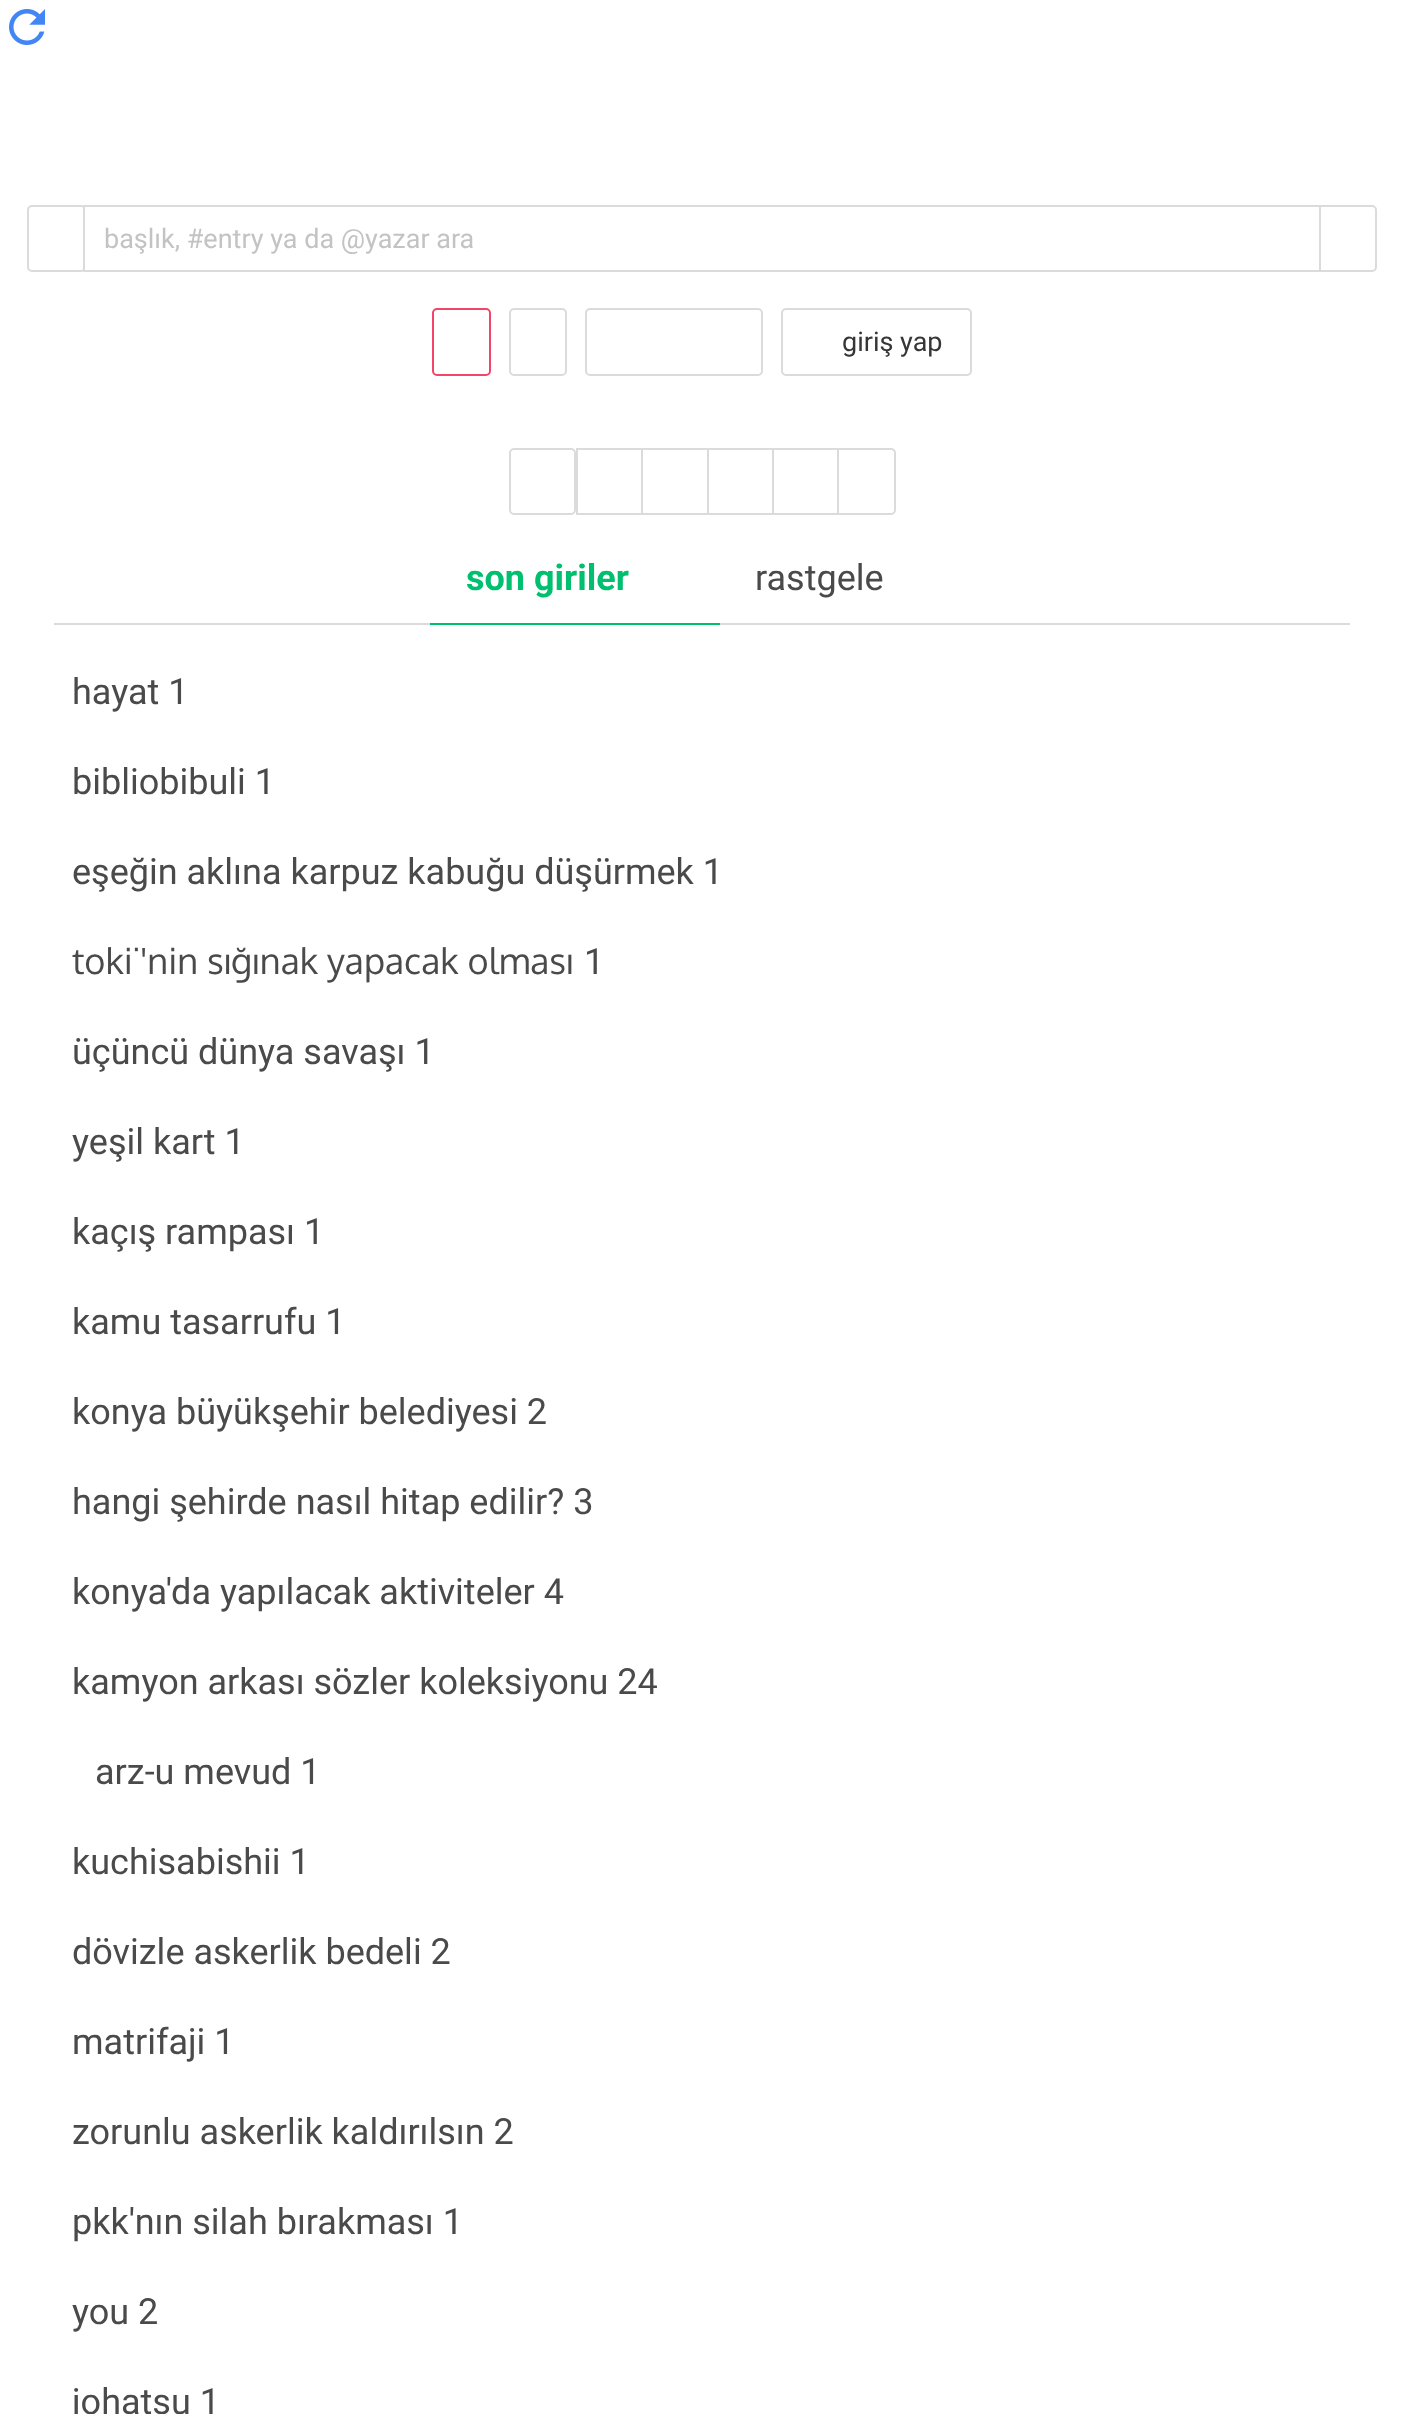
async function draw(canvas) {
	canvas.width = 1402;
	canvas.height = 2414;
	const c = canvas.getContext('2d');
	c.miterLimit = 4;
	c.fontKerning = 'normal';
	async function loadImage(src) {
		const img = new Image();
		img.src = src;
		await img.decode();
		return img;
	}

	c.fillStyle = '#fff';
	c.fillRect(0, 0, 1402, 2414);
	c.drawImage(await loadImage('img1.png'), 9, 9, 36, 36);
	c.beginPath();
	c.roundRect(28, 206, 57, 65, 4);
	c.strokeStyle = '#dbdbdb';
	c.lineWidth = 2;
	c.stroke();
	c.fillRect(85, 207, 1, 63);
	c.strokeRect(84, 206, 1236, 65);
	c.font = '27px Roboto';
	c.fillStyle = '#c3c3c3';
	c.fillText('başlık, #entry ya da @yazar ara', 104, 248);
	c.fillStyle = '#fff';
	c.beginPath();
	c.roundRect(1320, 206, 56, 65, [0, 4, 4, 0]);
	c.fill();
	c.stroke();
	c.beginPath();
	c.roundRect(433, 309, 57, 66, 4);
	c.strokeStyle = '#f14668';
	c.stroke();
	c.beginPath();
	c.roundRect(510, 309, 56, 66, 4);
	c.strokeStyle = '#dbdbdb';
	c.stroke();
	c.beginPath();
	c.roundRect(586, 309, 176, 66, 4);
	c.stroke();
	c.beginPath();
	c.roundRect(782, 309, 189, 66, 4);
	c.stroke();
	c.fillStyle = '#363636';
	c.fillText('giriş yap', 842, 351);
	c.beginPath();
	c.roundRect(510, 449, 65, 65, 4);
	c.stroke();
	c.strokeRect(577, 449, 66, 65);
	c.fillStyle = '#fff';
	c.fillRect(643, 450, 1, 63);
	c.strokeRect(642, 449, 66, 65);
	c.strokeRect(708, 449, 65, 65);
	c.strokeRect(773, 449, 65, 65);
	c.beginPath();
	c.roundRect(838, 449, 57, 65, [0, 4, 4, 0]);
	c.fill();
	c.stroke();
	c.fillStyle = '#dbdbdb';
	c.fillRect(54, 623, 1296, 2);
	c.fillStyle = '#00bf6f';
	c.fillRect(430, 623, 290, 2);
	c.font = 'bold 36px Roboto';
	c.fillText('son giriler', 466, 590);
	c.font = '36px Roboto';
	c.fillStyle = '#4a4a4a';
	for (const [text, x, y] of [
		['rastgele', 755, 590],
		['hayat 1', 72, 704],
		['bibliobibuli 1', 72, 794],
		['eşeğin aklına karpuz kabuğu düşürmek 1', 72, 884],
	]) {
		c.fillText(text, x, y);
	}
	c.font = '36px Oxygen';
	c.fillText('toki̇\'nin sığınak yapacak olması', 72, 974);
	c.font = '36px Roboto';
	for (const [text, x, y] of [
		['1', 584, 974],
		['üçüncü dünya savaşı 1', 72, 1064],
		['yeşil kart 1', 72, 1154],
		['kaçış rampası 1', 72, 1244],
		['kamu tasarrufu 1', 72, 1334],
		['konya büyükşehir belediyesi 2', 72, 1424],
		['hangi şehirde nasıl hitap edilir? 3', 72, 1514],
		['konya\'da yapılacak aktiviteler 4', 72, 1604],
		['kamyon arkası sözler koleksiyonu 24', 72, 1694],
		['arz-u mevud 1', 95, 1784],
		['kuchisabishii 1', 72, 1874],
		['dövizle askerlik bedeli 2', 72, 1964],
		['matrifaji 1', 72, 2054],
		['zorunlu askerlik kaldırılsın 2', 72, 2144],
		['pkk\'nın silah bırakması 1', 72, 2234],
		['you 2', 72, 2324],
		['johatsu 1', 72, 2414],
	]) {
		c.fillText(text, x, y);
	}
}

draw(document.querySelector('canvas'));
